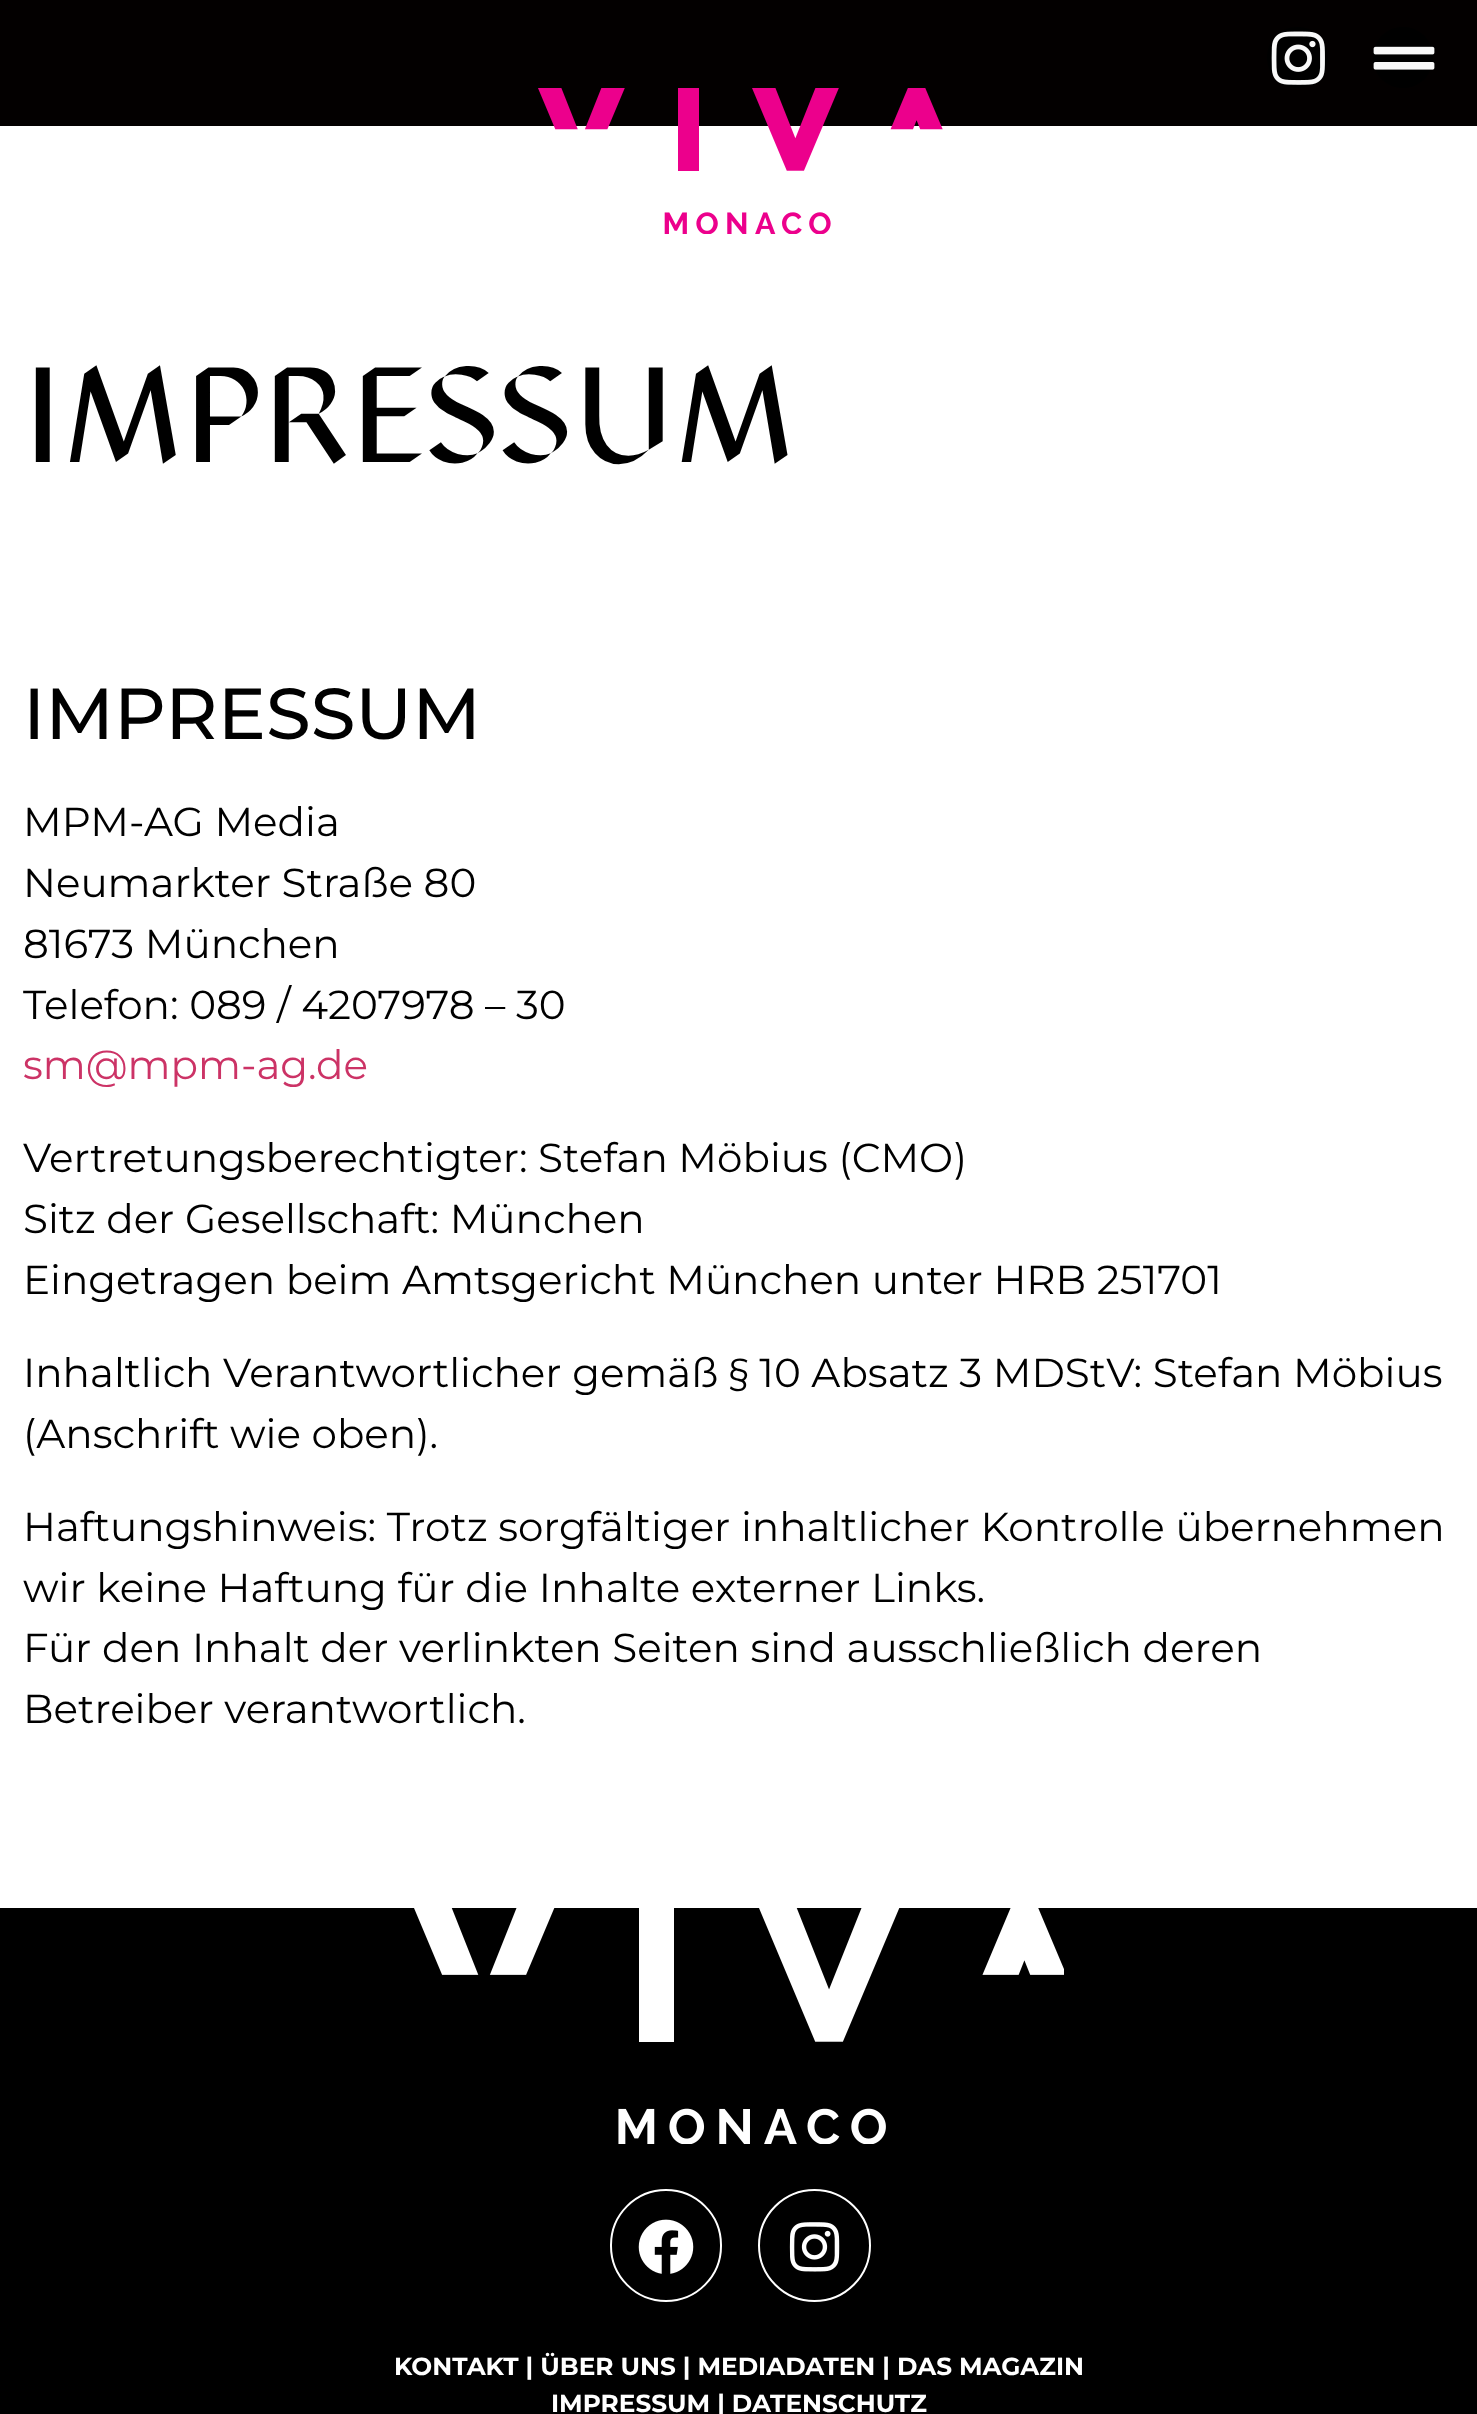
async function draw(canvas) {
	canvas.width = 1477;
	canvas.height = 2414;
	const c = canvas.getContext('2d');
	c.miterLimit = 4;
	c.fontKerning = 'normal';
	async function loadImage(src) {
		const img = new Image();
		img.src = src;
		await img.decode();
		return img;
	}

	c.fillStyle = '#fff';
	c.fillRect(0, 0, 1477, 2414);
	c.fillStyle = '#030000';
	c.fillRect(0, 0, 1477, 126);
	c.fillStyle = '#000';
	c.beginPath();
	c.arc(1297.5, 57.5, 30.5, 0, 2 * Math.PI);
	c.fill();
	c.drawImage(await loadImage('img1.png'), 1271, 31, 54, 54);
	c.beginPath();
	c.roundRect(1373, 27, 60, 61, 30);
	c.fill();
	c.drawImage(await loadImage('img2.png'), 1373, 46, 62, 24);
	c.drawImage(await loadImage('img3.png'), 538, 88, 405, 146);
	c.font = '500 135px "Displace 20"';
	c.fillText('IMPRESSUM', 23, 462);
	c.font = '500 72px Montserrat';
	c.fillText('IMPRESSUM', 23, 739);
	c.font = '40.5px Montserrat';
	for (const [text, x, y] of [
		['MPM-AG Media', 23, 836],
		['Neumarkter Straße 80', 23, 897],
		['81673 München', 23, 958],
		['Telefon: 089 / 4207978 – 30', 23, 1019],
	]) {
		c.fillText(text, x, y);
	}
	c.fillStyle = '#c36';
	c.fillText('sm@mpm-ag.de', 23, 1079);
	c.fillStyle = '#000';
	for (const [text, x, y] of [
		['Vertretungsberechtigter: Stefan Möbius (CMO)', 23, 1172],
		['Sitz der Gesellschaft: München', 23, 1233],
		['Eingetragen beim Amtsgericht München unter HRB 251701', 23, 1294],
		['Inhaltlich Verantwortlicher gemäß § 10 Absatz 3 MDStV: Stefan Möbius', 23, 1387],
		['(Anschrift wie oben).', 23, 1448],
		['Haftungshinweis: Trotz sorgfältiger inhaltlicher Kontrolle übernehmen', 23, 1541],
		['wir keine Haftung für die Inhalte externer Links.', 23, 1602],
		['Für den Inhalt der verlinkten Seiten sind ausschließlich deren', 23, 1662],
		['Betreiber verantwortlich.', 23, 1723],
	]) {
		c.fillText(text, x, y);
	}
	c.fillRect(0, 1908, 1477, 506);
	c.drawImage(await loadImage('img4.png'), 414, 1908, 650, 236);
	c.beginPath();
	c.roundRect(611, 2190, 110, 111, 55);
	c.strokeStyle = '#fff';
	c.lineWidth = 2;
	c.stroke();
	c.drawImage(await loadImage('img5.png'), 638, 2219, 56, 55);
	c.beginPath();
	c.arc(814.5, 2245.5, 55.5, 0, 2 * Math.PI);
	c.stroke();
	c.drawImage(await loadImage('img6.png'), 789, 2222, 51, 50);
	c.font = 'bold 24.75px Montserrat';
	c.fillStyle = '#fff';
	c.fillText('KONTAKT | ÜBER UNS | MEDIADATEN | DAS MAGAZIN', 394, 2375);
	c.fillText('IMPRESSUM | DATENSCHUTZ', 551, 2412);
}

draw(document.querySelector('canvas'));
